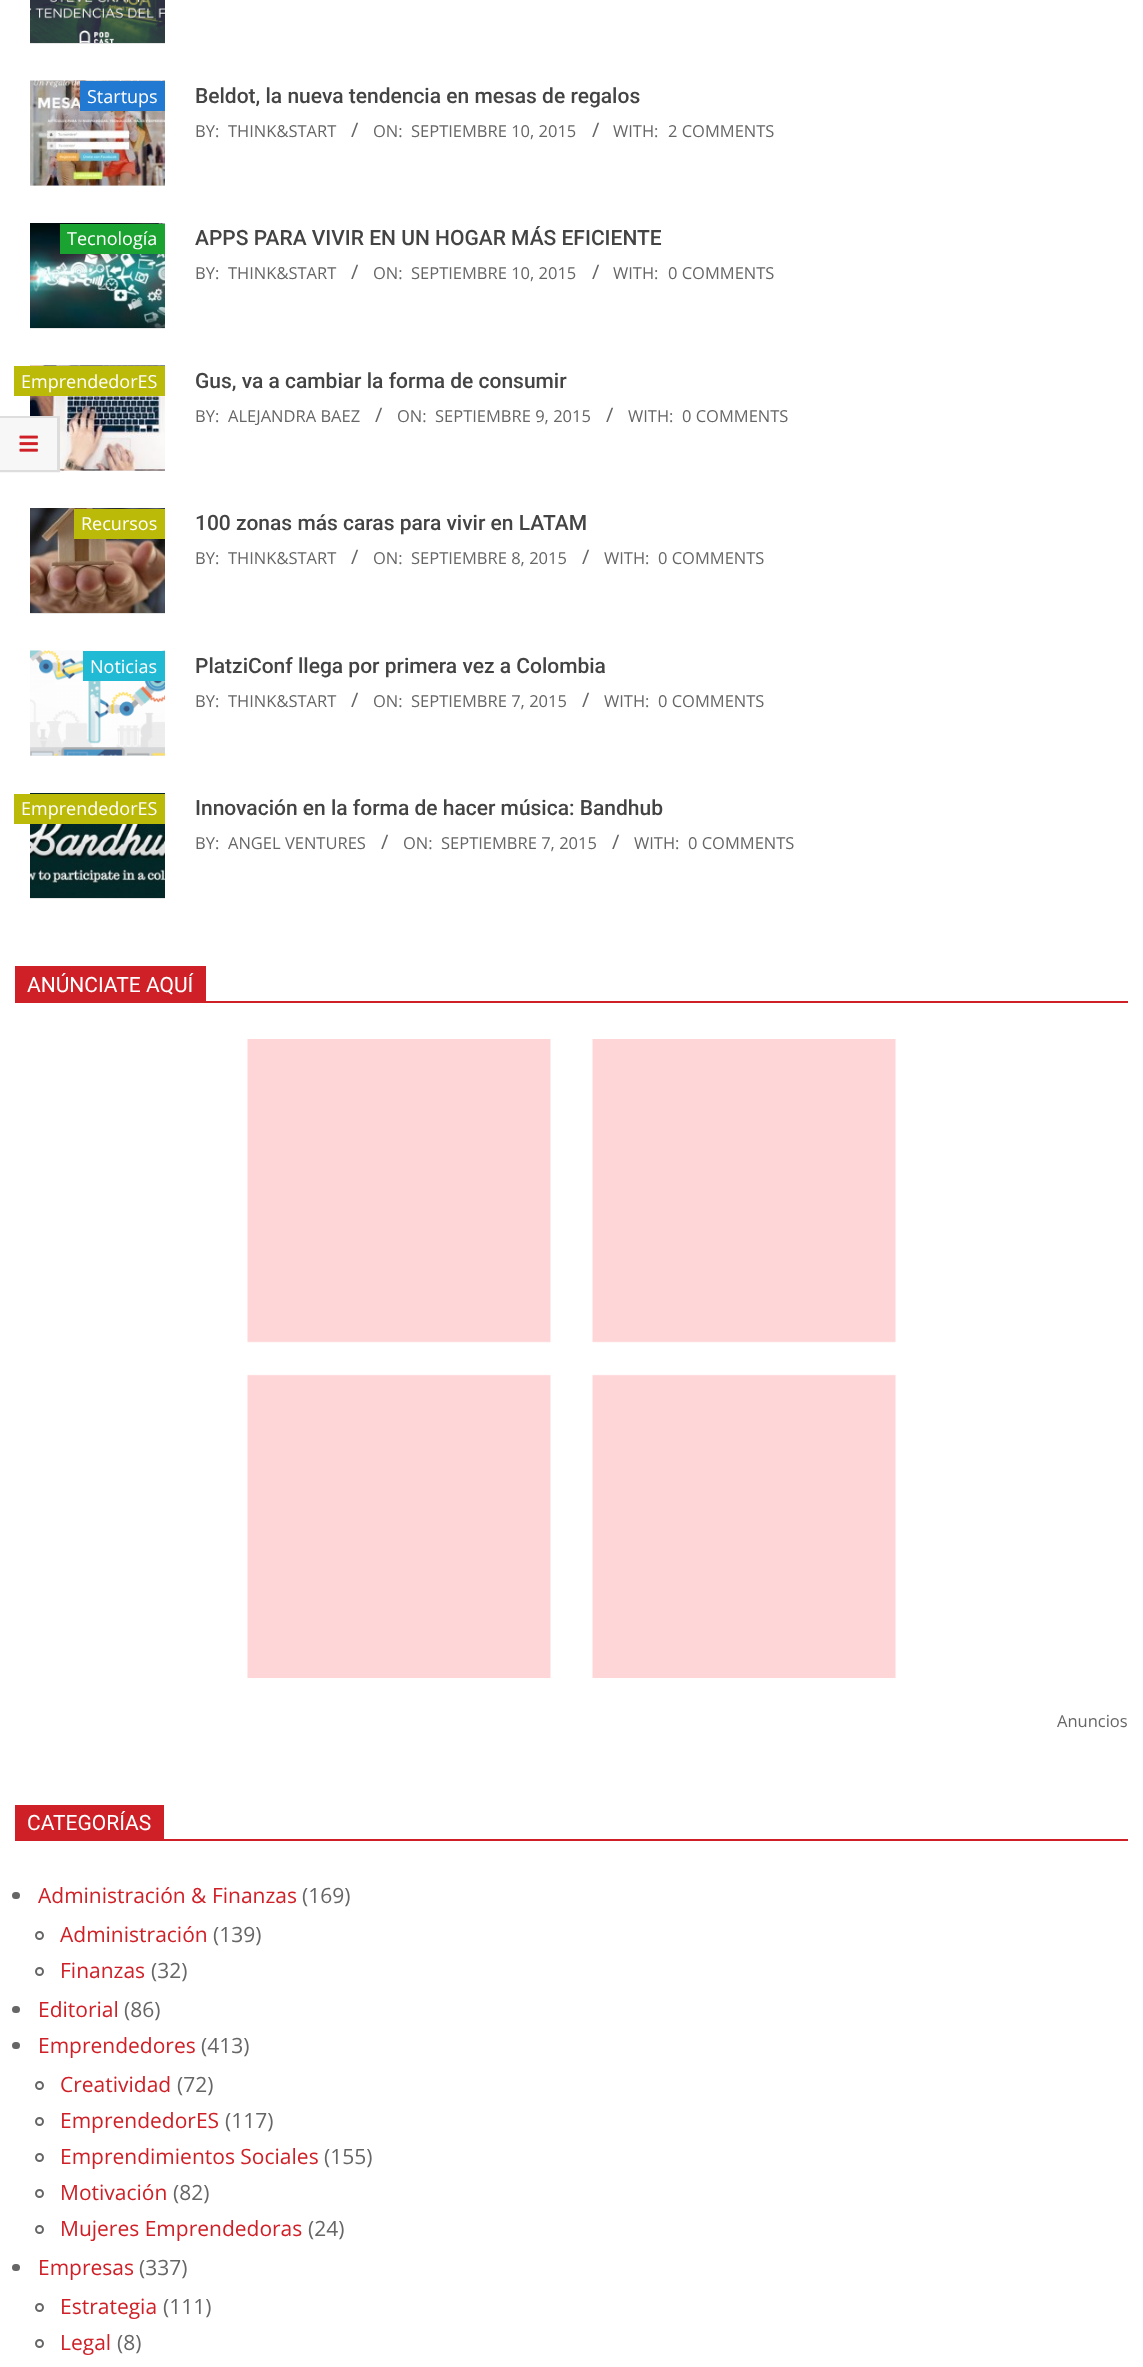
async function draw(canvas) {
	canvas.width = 1143;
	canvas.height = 2367;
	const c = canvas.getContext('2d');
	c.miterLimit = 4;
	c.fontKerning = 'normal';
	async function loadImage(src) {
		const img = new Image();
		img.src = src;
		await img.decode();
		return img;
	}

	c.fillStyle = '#fff';
	c.fillRect(0, 0, 1143, 2367);
	c.fillStyle = '#e6e6e6';
	c.fillRect(30, 43, 135, 1);
	c.drawImage(await loadImage('img1.png'), 30, 0, 135, 43);
	c.fillRect(30, 185, 135, 1);
	c.drawImage(await loadImage('img2.png'), 30, 80, 135, 106);
	c.fillStyle = '#2279d2';
	c.fillRect(80, 81, 85, 30);
	c.font = '18px Open Sans';
	c.fillStyle = '#fff';
	c.fillText('Startups', 87, 103);
	c.font = '500 21px Roboto';
	c.fillStyle = '#444';
	c.fillText('Beldot, la nueva tendencia en mesas de regalos', 195, 103);
	c.font = '16.5px Open Sans';
	c.fillStyle = '#666';
	c.fillText('BY:', 195, 137);
	c.fillText('THINK&START', 228, 137);
	c.font = '20px Open Sans';
	c.fillText('/', 351, 137);
	c.font = '16.5px Open Sans';
	c.fillText('ON:', 373, 137);
	c.fillText('SEPTIEMBRE 10, 2015', 411, 137);
	c.font = '20px Open Sans';
	c.fillText('/', 592, 137);
	c.font = '16.5px Open Sans';
	c.fillText('WITH:', 613, 137);
	c.fillText('2 COMMENTS', 668, 137);
	c.fillStyle = '#e6e6e6';
	c.fillRect(30, 328, 135, 1);
	c.drawImage(await loadImage('img3.png'), 30, 223, 135, 105);
	c.fillStyle = '#1aa331';
	c.fillRect(60, 224, 105, 30);
	c.font = '18px Open Sans';
	c.fillStyle = '#fff';
	c.fillText('Tecnología', 67, 245);
	c.font = '500 21px Roboto';
	c.fillStyle = '#444';
	c.fillText('APPS PARA VIVIR EN UN HOGAR MÁS EFICIENTE', 195, 245);
	c.font = '16.5px Open Sans';
	c.fillStyle = '#666';
	c.fillText('BY:', 195, 279);
	c.fillText('THINK&START', 228, 279);
	c.font = '20px Open Sans';
	c.fillText('/', 351, 279);
	c.font = '16.5px Open Sans';
	c.fillText('ON:', 373, 279);
	c.fillText('SEPTIEMBRE 10, 2015', 411, 279);
	c.font = '20px Open Sans';
	c.fillText('/', 592, 279);
	c.font = '16.5px Open Sans';
	c.fillText('WITH:', 613, 279);
	c.fillText('0 COMMENTS', 668, 279);
	c.fillStyle = '#e6e6e6';
	c.fillRect(60, 470, 105, 1);
	c.drawImage(await loadImage('img4.png'), 30, 365, 135, 106);
	c.fillStyle = '#bcba08';
	c.fillRect(14, 366, 151, 30);
	c.font = '18px Open Sans';
	c.fillStyle = '#fff';
	c.fillText('EmprendedorES', 21, 388);
	c.font = '500 21px Roboto';
	c.fillStyle = '#444';
	c.fillText('Gus, va a cambiar la forma de consumir', 195, 388);
	c.font = '16.5px Open Sans';
	c.fillStyle = '#666';
	c.fillText('BY:', 195, 422);
	c.fillText('ALEJANDRA BAEZ', 228, 422);
	c.font = '20px Open Sans';
	c.fillText('/', 375, 422);
	c.font = '16.5px Open Sans';
	c.fillText('ON:', 397, 422);
	c.fillText('SEPTIEMBRE 9, 2015', 435, 422);
	c.font = '20px Open Sans';
	c.fillText('/', 606, 422);
	c.font = '16.5px Open Sans';
	c.fillText('WITH:', 628, 422);
	c.fillText('0 COMMENTS', 682, 422);
	c.fillStyle = '#e6e6e6';
	c.fillRect(30, 613, 135, 1);
	c.drawImage(await loadImage('img5.png'), 30, 508, 135, 105);
	c.fillStyle = '#bcba08';
	c.fillRect(74, 509, 91, 30);
	c.font = '18px Open Sans';
	c.fillStyle = '#fff';
	c.fillText('Recursos', 81, 530);
	c.font = '500 21px Roboto';
	c.fillStyle = '#444';
	c.fillText('100 zonas más caras para vivir en LATAM', 195, 530);
	c.font = '16.5px Open Sans';
	c.fillStyle = '#666';
	c.fillText('BY:', 195, 564);
	c.fillText('THINK&START', 228, 564);
	c.font = '20px Open Sans';
	c.fillText('/', 351, 564);
	c.font = '16.5px Open Sans';
	c.fillText('ON:', 373, 564);
	c.fillText('SEPTIEMBRE 8, 2015', 411, 564);
	c.font = '20px Open Sans';
	c.fillText('/', 582, 564);
	c.font = '16.5px Open Sans';
	c.fillText('WITH:', 604, 564);
	c.fillText('0 COMMENTS', 658, 564);
	c.fillStyle = '#e6e6e6';
	c.fillRect(30, 755, 135, 1);
	c.drawImage(await loadImage('img6.png'), 30, 650, 135, 106);
	c.fillStyle = '#21bad5';
	c.fillRect(83, 651, 82, 30);
	c.font = '18px Open Sans';
	c.fillStyle = '#fff';
	c.fillText('Noticias', 90, 673);
	c.font = '500 21px Roboto';
	c.fillStyle = '#444';
	c.fillText('PlatziConf llega por primera vez a Colombia', 195, 673);
	c.font = '16.5px Open Sans';
	c.fillStyle = '#666';
	c.fillText('BY:', 195, 707);
	c.fillText('THINK&START', 228, 707);
	c.font = '20px Open Sans';
	c.fillText('/', 351, 707);
	c.font = '16.5px Open Sans';
	c.fillText('ON:', 373, 707);
	c.fillText('SEPTIEMBRE 7, 2015', 411, 707);
	c.font = '20px Open Sans';
	c.fillText('/', 582, 707);
	c.font = '16.5px Open Sans';
	c.fillText('WITH:', 604, 707);
	c.fillText('0 COMMENTS', 658, 707);
	c.fillStyle = '#e6e6e6';
	c.fillRect(30, 898, 135, 1);
	c.drawImage(await loadImage('img7.png'), 30, 793, 135, 105);
	c.fillStyle = '#bcba08';
	c.fillRect(14, 794, 151, 30);
	c.font = '18px Open Sans';
	c.fillStyle = '#fff';
	c.fillText('EmprendedorES', 21, 815);
	c.font = '500 21px Roboto';
	c.fillStyle = '#444';
	c.fillText('Innovación en la forma de hacer música: Bandhub', 195, 815);
	c.font = '16.5px Open Sans';
	c.fillStyle = '#666';
	c.fillText('BY:', 195, 849);
	c.fillText('ANGEL VENTURES', 228, 849);
	c.font = '20px Open Sans';
	c.fillText('/', 381, 849);
	c.font = '16.5px Open Sans';
	c.fillText('ON:', 403, 849);
	c.fillText('SEPTIEMBRE 7, 2015', 441, 849);
	c.font = '20px Open Sans';
	c.fillText('/', 612, 849);
	c.font = '16.5px Open Sans';
	c.fillText('WITH:', 634, 849);
	c.fillText('0 COMMENTS', 688, 849);
	c.fillStyle = '#cf2027';
	c.fillRect(15, 966, 191, 35);
	c.font = '21px Roboto';
	c.fillStyle = '#fff';
	c.fillText('ANÚNCIATE AQUÍ', 27, 992);
	c.fillStyle = '#cf2027';
	c.fillRect(15, 1001, 1113, 2);
	c.drawImage(await loadImage('img8.png'), 247, 1039, 649, 639);
	c.font = '16.5px Open Sans';
	c.fillStyle = '#666';
	c.fillText('Anuncios', 1057, 1727);
	c.fillStyle = '#cf2027';
	c.fillRect(15, 1805, 149, 34);
	c.font = '21px Roboto';
	c.fillStyle = '#fff';
	c.fillText('CATEGORÍAS', 27, 1830);
	c.fillStyle = '#cf2027';
	c.fillRect(15, 1839, 1113, 2);
	c.fillStyle = '#666';
	c.beginPath();
	c.roundRect(12, 1892, 8, 7, 3.5);
	c.fill();
	c.font = '21px Open Sans';
	c.fillStyle = '#cf2027';
	c.fillText('Administración & Finanzas', 38, 1903);
	c.fillStyle = '#666';
	c.fillText('(169)', 302, 1903);
	c.beginPath();
	c.arc(39.5, 1935.5, 3.5, 0, 2 * Math.PI);
	c.strokeStyle = '#666';
	c.lineWidth = 2;
	c.stroke();
	c.fillStyle = '#cf2027';
	c.fillText('Administración', 60, 1942);
	c.fillStyle = '#666';
	c.fillText('(139)', 213, 1942);
	c.beginPath();
	c.arc(39.5, 1971.5, 3.5, 0, 2 * Math.PI);
	c.stroke();
	c.fillStyle = '#cf2027';
	c.fillText('Finanzas', 60, 1978);
	c.fillStyle = '#666';
	c.fillText('(32)', 151, 1978);
	c.beginPath();
	c.roundRect(12, 2006, 8, 7, 3.5);
	c.fill();
	c.fillStyle = '#cf2027';
	c.fillText('Editorial', 38, 2017);
	c.fillStyle = '#666';
	c.fillText('(86)', 124, 2017);
	c.beginPath();
	c.roundRect(12, 2042, 8, 7, 3.5);
	c.fill();
	c.fillStyle = '#cf2027';
	c.fillText('Emprendedores', 38, 2053);
	c.fillStyle = '#666';
	c.fillText('(413)', 201, 2053);
	c.beginPath();
	c.arc(39.5, 2085.5, 3.5, 0, 2 * Math.PI);
	c.stroke();
	c.fillStyle = '#cf2027';
	c.fillText('Creatividad', 60, 2092);
	c.fillStyle = '#666';
	c.fillText('(72)', 177, 2092);
	c.beginPath();
	c.arc(39.5, 2121.5, 3.5, 0, 2 * Math.PI);
	c.stroke();
	c.fillStyle = '#cf2027';
	c.fillText('EmprendedorES', 60, 2128);
	c.fillStyle = '#666';
	c.fillText('(117)', 225, 2128);
	c.beginPath();
	c.arc(39.5, 2157.5, 3.5, 0, 2 * Math.PI);
	c.stroke();
	c.fillStyle = '#cf2027';
	c.fillText('Emprendimientos Sociales', 60, 2164);
	c.fillStyle = '#666';
	c.fillText('(155)', 324, 2164);
	c.beginPath();
	c.arc(39.5, 2193.5, 3.5, 0, 2 * Math.PI);
	c.stroke();
	c.fillStyle = '#cf2027';
	c.fillText('Motivación', 60, 2200);
	c.fillStyle = '#666';
	c.fillText('(82)', 173, 2200);
	c.beginPath();
	c.arc(39.5, 2229.5, 3.5, 0, 2 * Math.PI);
	c.stroke();
	c.fillStyle = '#cf2027';
	c.fillText('Mujeres Emprendedoras', 60, 2236);
	c.fillStyle = '#666';
	c.fillText('(24)', 308, 2236);
	c.beginPath();
	c.roundRect(12, 2264, 8, 7, 3.5);
	c.fill();
	c.fillStyle = '#cf2027';
	c.fillText('Empresas', 38, 2275);
	c.fillStyle = '#666';
	c.fillText('(337)', 139, 2275);
	c.beginPath();
	c.arc(39.5, 2307.5, 3.5, 0, 2 * Math.PI);
	c.stroke();
	c.fillStyle = '#cf2027';
	c.fillText('Estrategia', 60, 2314);
	c.fillStyle = '#666';
	c.fillText('(111)', 163, 2314);
	c.beginPath();
	c.arc(39.5, 2343.5, 3.5, 0, 2 * Math.PI);
	c.stroke();
	c.fillStyle = '#cf2027';
	c.fillText('Legal', 60, 2350);
	c.fillStyle = '#666';
	c.fillText('(8)', 117, 2350);
	c.fillStyle = '#f7f7f7';
	c.fillRect(0, 416, 60, 57);
	c.fillStyle = '#dedede';
	c.beginPath();
	c.moveTo(0, 416);
	c.lineTo(60, 416);
	c.lineTo(57, 418);
	c.lineTo(0, 418);
	c.closePath();
	c.fill();
	c.fillStyle = '#0000001a';
	c.beginPath();
	c.moveTo(60, 416);
	c.lineTo(60, 472);
	c.lineTo(57, 470);
	c.lineTo(57, 418);
	c.closePath();
	c.fill();
	c.beginPath();
	c.moveTo(60, 472);
	c.lineTo(0, 472);
	c.lineTo(0, 470);
	c.lineTo(57, 470);
	c.closePath();
	c.fill();
	c.drawImage(await loadImage('img9.png'), 19, 435, 19, 17);
}

draw(document.querySelector('canvas'));
